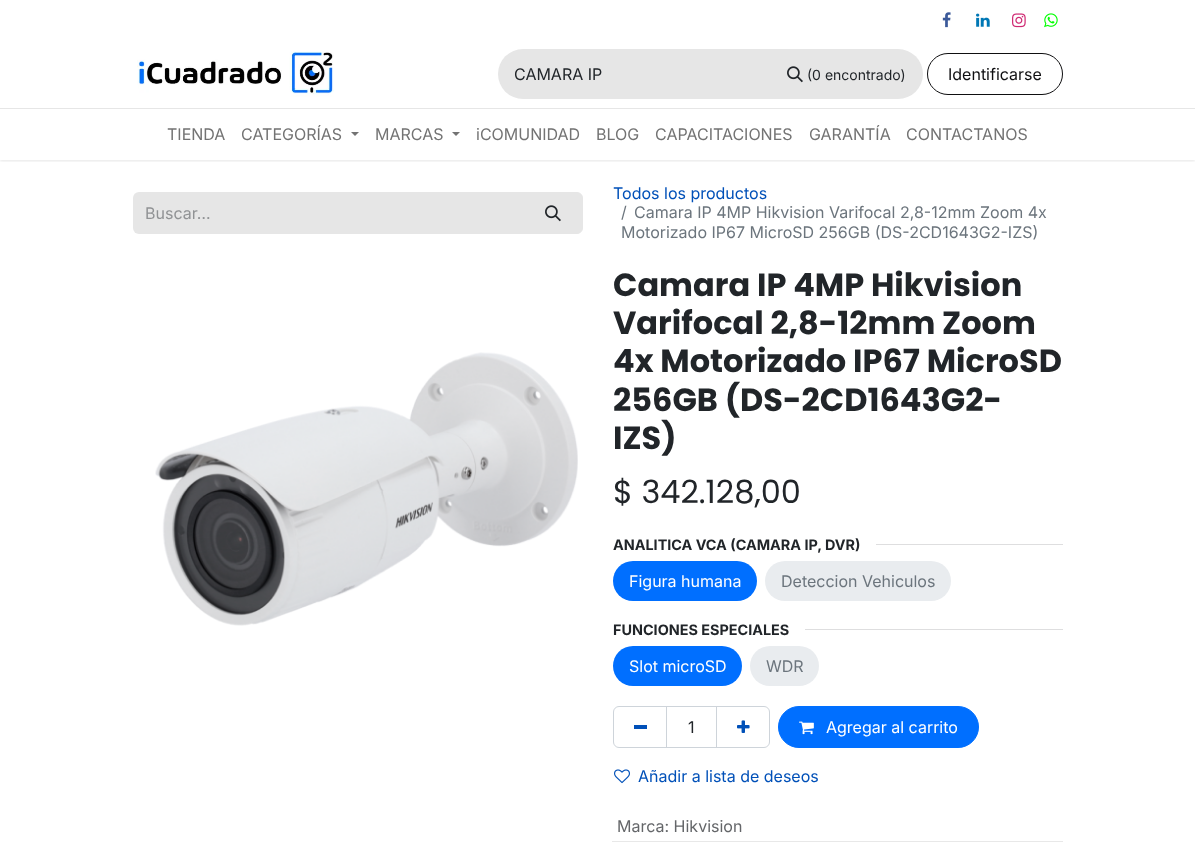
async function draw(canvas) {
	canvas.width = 1195;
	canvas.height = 854;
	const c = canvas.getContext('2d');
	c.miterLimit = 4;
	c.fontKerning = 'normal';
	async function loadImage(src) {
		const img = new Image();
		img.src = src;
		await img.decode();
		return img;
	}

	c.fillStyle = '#fff';
	c.fillRect(0, 0, 1195, 854);
	c.save();
	c.beginPath();
	c.rect(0, 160, 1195, 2);
	c.clip();
	c.fillStyle = '#0000001a';
	c.filter = 'blur(1.5px)';
	c.beginPath();
	c.rect(0, 1, 1195, 160);
	c.fill();
	c.filter = 'none';
	c.restore();
	c.drawImage(await loadImage('img1.png'), 942, 12, 9, 16);
	c.drawImage(await loadImage('img2.png'), 976, 13, 14, 14);
	c.drawImage(await loadImage('img3.png'), 1012, 13, 14, 15);
	c.drawImage(await loadImage('img4.png'), 1044, 13, 14, 15);
	c.drawImage(await loadImage('img5.png'), 137, 51, 197, 46);
	c.fillStyle = '#e6e6e6';
	c.beginPath();
	c.roundRect(498, 49, 273, 50, [25, 0, 0, 25]);
	c.fill();
	c.font = '16px Inter';
	c.fillStyle = '#212529';
	c.fillText('CAMARA IP', 514, 80);
	c.fillStyle = '#e6e6e6';
	c.beginPath();
	c.roundRect(770, 49, 153, 50, [0, 25, 25, 0]);
	c.fill();
	c.drawImage(await loadImage('img6.png'), 787, 66, 16, 17);
	c.font = '14px Inter';
	c.fillStyle = '#212529';
	c.fillText('(0 encontrado)', 807, 80);
	c.beginPath();
	c.roundRect(927.5, 53.5, 135, 41, 20.5);
	c.strokeStyle = '#0f0f11';
	c.stroke();
	c.font = '16px Inter';
	c.fillStyle = '#0f0f11';
	c.fillText('Identificarse', 948, 80);
	c.fillStyle = '#e6e6e6';
	c.fillRect(0, 108, 1195, 1);
	c.fillStyle = '#737373';
	c.fillText('TIENDA', 167, 140);
	c.fillText('CATEGORÍAS', 241, 140);
	c.beginPath();
	c.moveTo(351, 132);
	c.lineTo(359, 132);
	c.lineTo(355, 136);
	c.closePath();
	c.fill();
	c.fillText('MARCAS', 375, 140);
	c.beginPath();
	c.moveTo(452, 132);
	c.lineTo(460, 132);
	c.lineTo(456, 136);
	c.closePath();
	c.fill();
	for (const [text, x, y] of [
		['iCOMUNIDAD', 476, 140],
		['BLOG', 596, 140],
		['CAPACITACIONES', 655, 140],
		['GARANTÍA', 809, 140],
		['CONTACTANOS', 906, 140],
	]) {
		c.fillText(text, x, y);
	}
	c.fillStyle = '#e6e6e6';
	c.beginPath();
	c.roundRect(133, 192, 392, 42, [6, 0, 0, 6]);
	c.fill();
	c.fillStyle = '#909294';
	c.fillText('Buscar…', 145, 219);
	c.fillStyle = '#e6e6e6';
	c.beginPath();
	c.roundRect(524.5, 192.5, 58, 41, [0, 5.5, 5.5, 0]);
	c.fill();
	c.strokeStyle = '#e6e6e6';
	c.stroke();
	c.drawImage(await loadImage('img6.png'), 545, 205, 16, 17);
	c.fillStyle = '#0050b8';
	c.fillText('Todos los productos', 613, 199);
	c.fillStyle = '#6c757d';
	for (const [text, x, y] of [
		['/', 621, 218],
		['Camara IP 4MP Hikvision Varifocal 2,8-12mm Zoom 4x', 634, 218],
		['Motorizado IP67 MicroSD 256GB (DS-2CD1643G2-IZS)', 621, 238],
	]) {
		c.fillText(text, x, y);
	}
	c.drawImage(await loadImage('img7.png'), 155, 352, 423, 274);
	c.font = 'bold 32px Poppins';
	c.fillStyle = '#212529';
	for (const [text, x, y] of [
		['Camara IP 4MP Hikvision', 613, 296],
		['Varifocal 2,8-12mm Zoom', 613, 334],
		['4x Motorizado IP67 MicroSD', 613, 372],
		['256GB (DS-2CD1643G2-', 613, 411],
		['IZS)', 613, 449],
	]) {
		c.fillText(text, x, y);
	}
	c.font = '32px Poppins';
	c.fillText('$ 342.128,00', 613, 503);
	c.font = 'bold 14.4px Inter';
	c.fillText('ANALITICA VCA (CAMARA IP, DVR)', 613, 550);
	c.fillStyle = '#dededf';
	c.fillRect(876, 544, 187, 1);
	c.fillStyle = '#006fff';
	c.beginPath();
	c.roundRect(613, 561, 144, 40, 20);
	c.fill();
	c.font = '16px Inter';
	c.fillStyle = '#fff';
	c.fillText('Figura humana', 629, 587);
	c.fillStyle = '#e9ecef';
	c.beginPath();
	c.roundRect(765, 561, 186, 40, 20);
	c.fill();
	c.fillStyle = '#6c757d';
	c.fillText('Deteccion Vehiculos', 781, 587);
	c.font = 'bold 14.4px Inter';
	c.fillStyle = '#212529';
	c.fillText('FUNCIONES ESPECIALES', 613, 635);
	c.fillStyle = '#dededf';
	c.fillRect(805, 629, 258, 1);
	c.fillStyle = '#006fff';
	c.beginPath();
	c.roundRect(613, 646, 129, 40, 20);
	c.fill();
	c.font = '16px Inter';
	c.fillStyle = '#fff';
	c.fillText('Slot microSD', 629, 672);
	c.fillStyle = '#e9ecef';
	c.beginPath();
	c.roundRect(750, 646, 69, 40, 20);
	c.fill();
	c.fillStyle = '#6c757d';
	c.fillText('WDR', 766, 672);
	c.strokeStyle = '#ced4da';
	c.strokeRect(666.5, 706.5, 50, 41);
	c.beginPath();
	c.roundRect(613.5, 706.5, 53, 41, [5.5, 0, 0, 5.5]);
	c.stroke();
	c.fillStyle = '#0050b8';
	c.fillRect(634, 725, 13, 4);
	c.fillStyle = '#212529';
	c.fillText('1', 688, 733);
	c.beginPath();
	c.roundRect(716.5, 706.5, 53, 41, [0, 5.5, 5.5, 0]);
	c.stroke();
	c.drawImage(await loadImage('img8.png'), 737, 720, 13, 13);
	c.fillStyle = '#006fff';
	c.beginPath();
	c.roundRect(778.5, 706.5, 200, 41, 20.5);
	c.fill();
	c.strokeStyle = '#006fff';
	c.stroke();
	c.drawImage(await loadImage('img9.png'), 799, 721, 15, 14);
	c.fillStyle = '#fff';
	c.fillText('Agregar al carrito', 826, 733);
	c.drawImage(await loadImage('img10.png'), 614, 769, 16, 15);
	c.fillStyle = '#0050b8';
	c.fillText('Añadir a lista de deseos', 638, 782);
	c.fillStyle = '#e8e8e8';
	c.fillRect(612, 841, 451, 1);
	c.fillStyle = '#646669';
	c.fillText('Marca: Hikvision', 617, 832);
}

draw(document.querySelector('canvas'));
